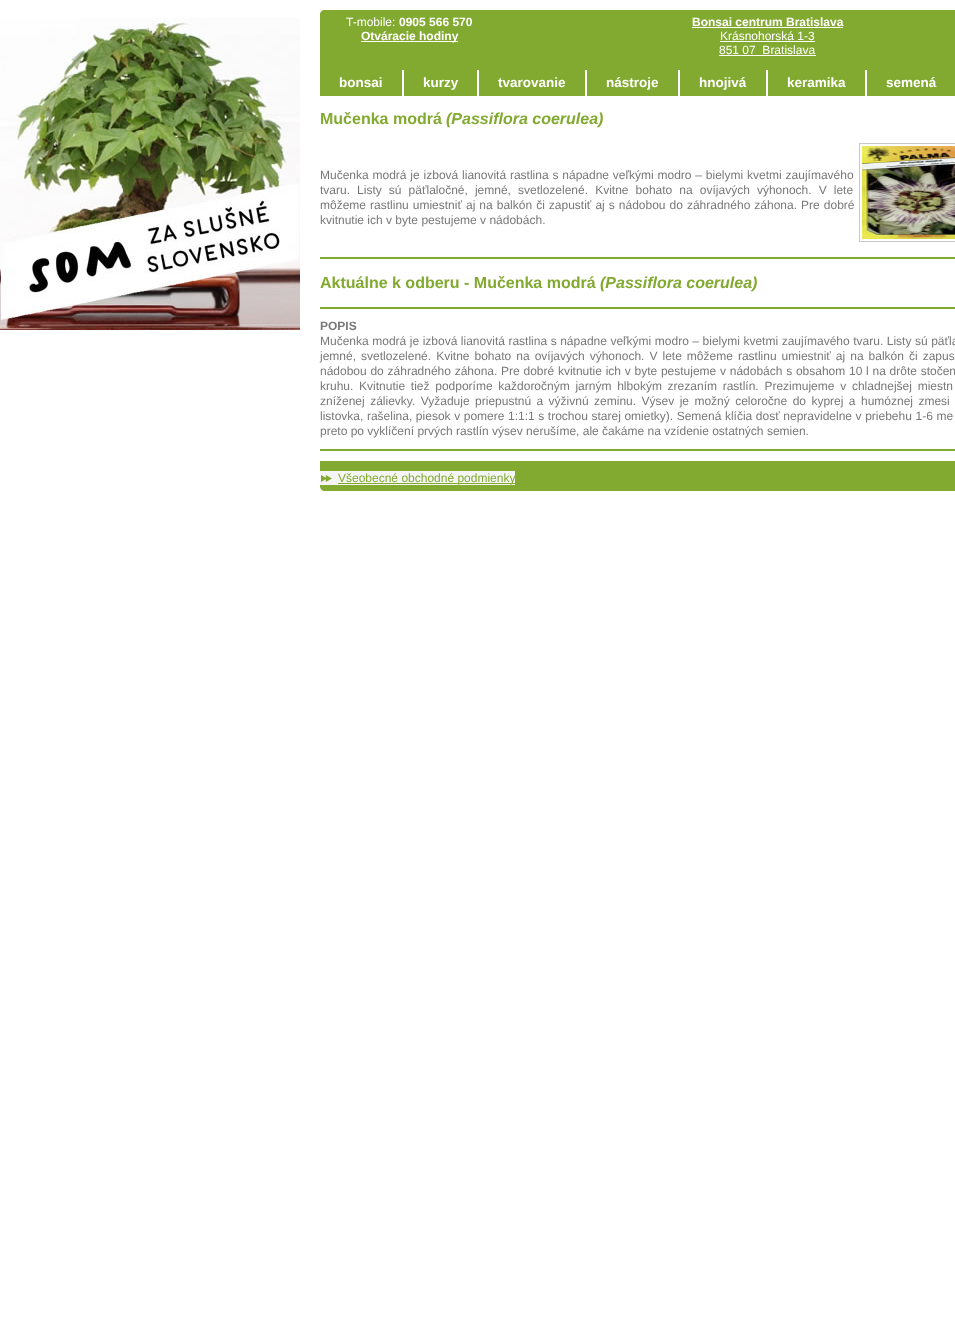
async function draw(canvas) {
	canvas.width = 955;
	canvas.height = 1323;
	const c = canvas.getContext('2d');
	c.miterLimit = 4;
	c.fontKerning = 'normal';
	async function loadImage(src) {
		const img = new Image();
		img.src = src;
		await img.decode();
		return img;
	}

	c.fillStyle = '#fff';
	c.fillRect(0, 0, 955, 1323);
	c.drawImage(await loadImage('img1.png'), 0, 18, 300, 312);
	c.fillStyle = '#82aa31';
	c.beginPath();
	c.moveTo(325, 10);
	c.lineTo(955, 10);
	c.bezierCurveTo(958, 10, 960, 12, 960, 15);
	c.lineTo(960, 70);
	c.lineTo(320, 70);
	c.lineTo(320, 15);
	c.bezierCurveTo(320, 12, 322, 10, 325, 10);
	c.closePath();
	c.fill();
	c.beginPath();
	c.roundRect(320, 10, 179, 50, [5, 5, 0, 0]);
	c.fill();
	c.font = '12px Liberation Sans';
	c.fillStyle = '#fff';
	c.fillText('T-mobile:', 346, 26);
	c.font = 'bold 12px Liberation Sans';
	c.fillText('0905 566 570', 399, 26);
	c.fillRect(361, 41, 97, 1);
	c.fillText('Otváracie hodiny', 361, 40);
	c.fillText('Bonsai centrum Bratislava', 692, 26);
	c.fillRect(692, 27, 151, 1);
	c.font = '12px Liberation Sans';
	c.fillText('Krásnohorská 1-3', 720, 40);
	c.fillRect(720, 41, 95, 1);
	c.fillText('851 07  Bratislava', 719, 54);
	for (const [x, y, w, h, color] of [
		[719, 55, 97, 1, '#fff'],
		[320, 70, 635, 26, '#82aa31'],
		[402, 70, 2, 26, '#fff'],
	]) {
		c.fillStyle = color;
		c.fillRect(x, y, w, h);
	}
	c.font = 'bold 13.5px Liberation Sans';
	c.fillText('bonsai', 339, 87);
	c.fillRect(477, 70, 2, 26);
	c.fillText('kurzy', 423, 87);
	c.fillRect(585, 70, 2, 26);
	c.fillText('tvarovanie', 498, 87);
	c.fillRect(678, 70, 2, 26);
	c.fillText('nástroje', 606, 87);
	c.fillRect(766, 70, 2, 26);
	c.fillText('hnojivá', 699, 87);
	c.fillRect(865, 70, 2, 26);
	c.fillText('keramika', 787, 87);
	c.fillText('semená', 886, 87);
	c.font = 'bold 16px Liberation Sans';
	c.fillStyle = '#82aa31';
	c.fillText('Mučenka modrá', 320, 124);
	c.font = 'italic bold 16px Liberation Sans';
	c.fillText('(Passiflora coerulea)', 446, 124);
	c.wordSpacing = '0.5px';
	c.font = '12px Liberation Sans';
	c.fillStyle = '#787878';
	c.fillText('Mučenka modrá je izbová lianovitá rastlina s nápadne veľkými modro – bielymi kvetmi zaujímavého', 320, 179);
	c.strokeStyle = '#c8cac9';
	c.strokeRect(859.5, 143.5, 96, 98);
	c.drawImage(await loadImage('img2.png'), 862, 146, 93, 93);
	c.wordSpacing = '3.75px';
	c.fillText('tvaru. Listy sú päťlaločné, jemné, svetlozelené. Kvitne bohato na ovíjavých výhonoch. V lete', 320, 194);
	c.wordSpacing = '0.7px';
	c.fillText('môžeme rastlinu umiestniť aj na balkón či zapustiť aj s nádobou do záhradného záhona. Pre dobré', 320, 209);
	c.wordSpacing = '0px';
	c.fillText('kvitnutie ich v byte pestujeme v nádobách.', 320, 224);
	c.fillStyle = '#82aa31';
	c.fillRect(320, 257, 635, 2);
	c.font = 'bold 16px Liberation Sans';
	c.fillText('Aktuálne k odberu - Mučenka modrá', 320, 288);
	c.font = 'italic bold 16px Liberation Sans';
	c.fillText('(Passiflora coerulea)', 600, 288);
	c.fillRect(320, 307, 635, 2);
	c.font = 'bold 12px Liberation Sans';
	c.fillStyle = '#787878';
	c.fillText('POPIS', 320, 330);
	c.wordSpacing = '0.2px';
	c.font = '12px Liberation Sans';
	c.fillText('Mučenka modrá je izbová lianovitá rastlina s nápadne veľkými modro – bielymi kvetmi zaujímavého tvaru. Listy sú päťla', 320, 345);
	c.wordSpacing = '1.7px';
	c.fillText('jemné, svetlozelené. Kvitne bohato na ovíjavých výhonoch. V lete môžeme rastlinu umiestniť aj na balkón či zapus', 320, 360);
	c.wordSpacing = '0.4px';
	c.fillText('nádobou do záhradného záhona. Pre dobré kvitnutie ich v byte pestujeme v nádobách s obsahom 10 l na drôte stočen', 320, 375);
	c.wordSpacing = '2.4px';
	c.fillText('kruhu. Kvitnutie tiež podporíme každoročným jarným hlbokým zrezaním rastlín. Prezimujeme v chladnejšej miestn', 320, 390);
	c.wordSpacing = '2.1px';
	c.fillText('zníženej zálievky. Vyžaduje priepustnú a výživnú zeminu. Výsev je možný celoročne do kyprej a humóznej zmesi', 320, 405);
	c.wordSpacing = '0.25px';
	c.fillText('listovka, rašelina, piesok v pomere 1:1:1 s trochou starej omietky). Semená klíčia dosť nepravidelne v priebehu 1-6 me', 320, 420);
	c.wordSpacing = '0px';
	c.fillText('preto po vyklíčení prvých rastlín výsev nerušíme, ale čakáme na vzídenie ostatných semien.', 320, 435);
	c.fillStyle = '#82aa31';
	c.fillRect(320, 449, 635, 2);
	c.beginPath();
	c.moveTo(320, 461);
	c.lineTo(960, 461);
	c.lineTo(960, 486);
	c.bezierCurveTo(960, 489, 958, 491, 955, 491);
	c.lineTo(325, 491);
	c.bezierCurveTo(322, 491, 320, 489, 320, 486);
	c.closePath();
	c.fill();
	c.drawImage(await loadImage('img3.png'), 320, 471, 195, 14);
	c.fillRect(338, 483, 177, 1);
	c.fillText('Všeobecné obchodné podmienky', 338, 482);
}

draw(document.querySelector('canvas'));
